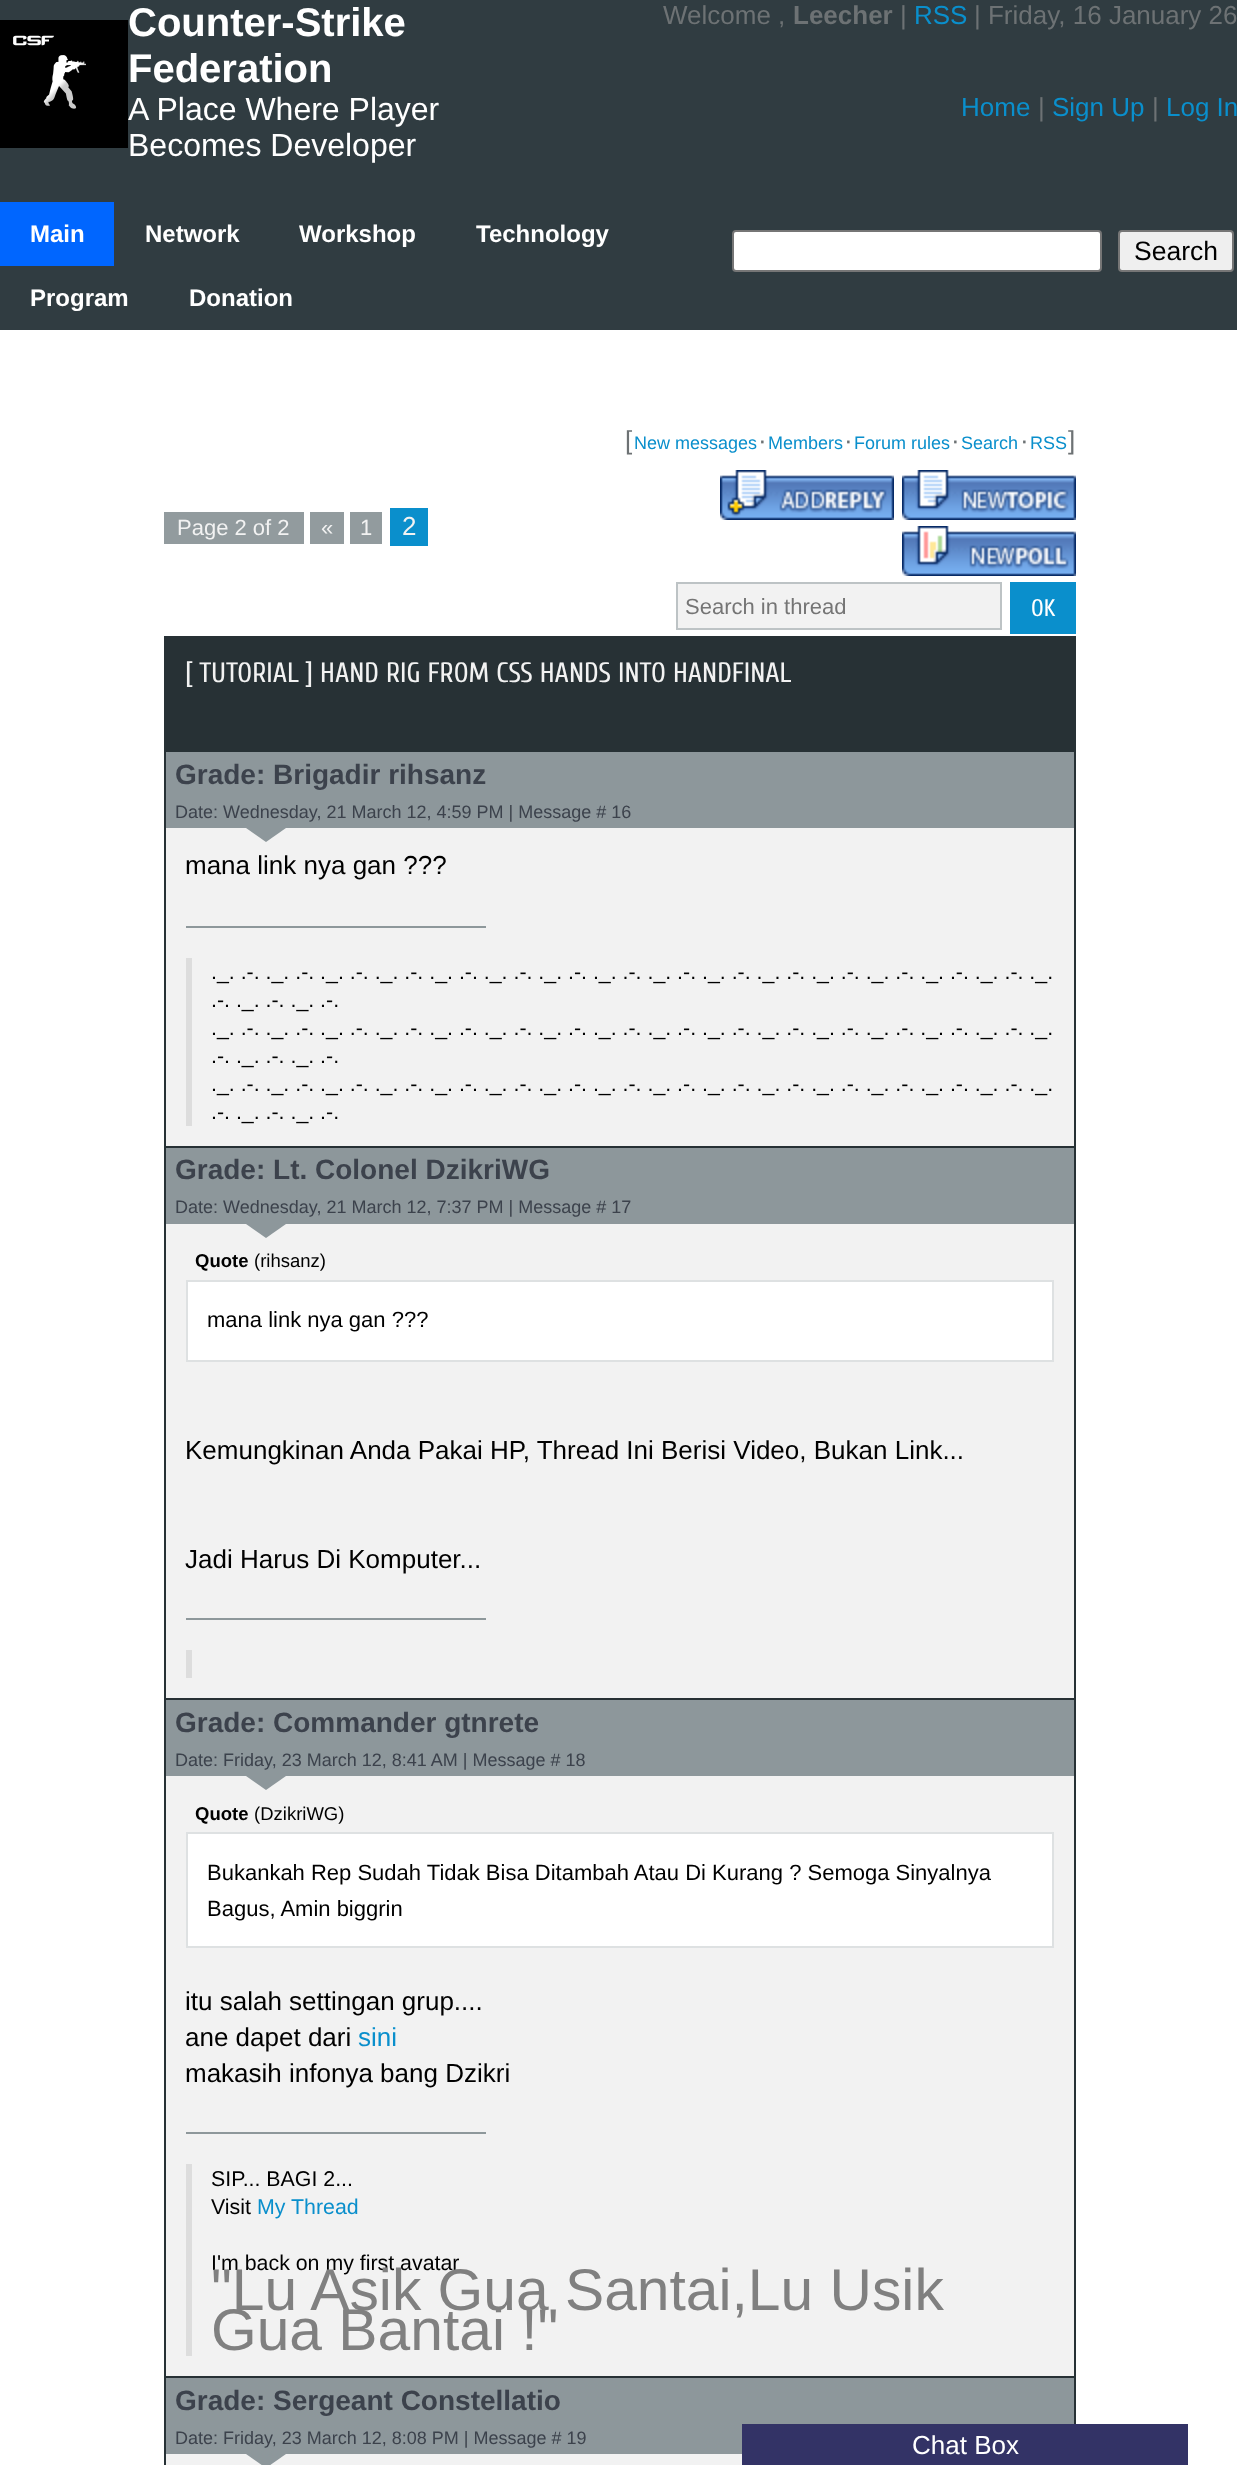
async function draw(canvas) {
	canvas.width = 1237;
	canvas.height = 2465;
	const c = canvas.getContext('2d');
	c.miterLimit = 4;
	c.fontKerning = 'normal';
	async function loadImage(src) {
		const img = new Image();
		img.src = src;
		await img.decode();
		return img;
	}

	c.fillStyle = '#fff';
	c.fillRect(0, 0, 1237, 2465);
	c.fillStyle = '#303c41';
	c.fillRect(0, 0, 1237, 330);
	c.drawImage(await loadImage('img1.png'), 0, 20, 128, 128);
	c.font = 'bold 40px Liberation Sans';
	c.fillStyle = '#fff';
	c.fillText('Counter-Strike', 128, 36);
	c.fillText('Federation', 128, 82);
	c.font = '26px Liberation Sans';
	c.fillStyle = '#6d7274';
	c.fillText('Welcome ,', 663, 24);
	c.font = 'bold 26px Liberation Sans';
	c.fillText('Leecher', 793, 24);
	c.font = '26px Liberation Sans';
	c.fillText('|', 900, 24);
	c.fillStyle = '#0a8fcc';
	c.fillText('RSS', 914, 24);
	c.fillStyle = '#6d7274';
	c.fillText('| Friday, 16 January 26', 974, 24);
	c.font = '32px Liberation Sans';
	c.fillStyle = '#fff';
	c.fillText('A Place Where Player', 128, 120);
	c.fillText('Becomes Developer', 128, 156);
	c.font = '26px Liberation Sans';
	c.fillStyle = '#0a8fcc';
	c.fillText('Home', 961, 116);
	c.fillStyle = '#6d7274';
	c.fillText('|', 1038, 116);
	c.fillStyle = '#0a8fcc';
	c.fillText('Sign Up', 1052, 116);
	c.fillStyle = '#6d7274';
	c.fillText('|', 1152, 116);
	c.fillStyle = '#0a8fcc';
	c.fillText('Log In', 1166, 116);
	c.fillStyle = '#06f';
	c.fillRect(0, 202, 114, 64);
	c.font = 'bold 24px Liberation Sans';
	c.fillStyle = '#fff';
	for (const [text, x, y] of [
		['Main', 30, 242],
		['Network', 145, 242],
		['Workshop', 299, 242],
		['Technology', 476, 242],
		['Program', 30, 306],
		['Donation', 189, 306],
	]) {
		c.fillText(text, x, y);
	}
	c.beginPath();
	c.roundRect(733, 231, 368, 40, 3);
	c.fill();
	c.strokeStyle = '#767676';
	c.lineWidth = 2;
	c.stroke();
	c.fillStyle = '#efefef';
	c.beginPath();
	c.roundRect(1119, 231, 114, 40, 3);
	c.fill();
	c.stroke();
	c.font = '26.5px Liberation Sans';
	c.fillStyle = '#000';
	c.fillText('Search', 1134, 260);
	c.font = '26px Liberation Sans';
	c.fillStyle = '#6d7274';
	c.fillText('[', 625, 449);
	c.font = '18px Liberation Sans';
	c.fillStyle = '#0a8fcc';
	c.fillText('New messages', 634, 449);
	c.font = '26px Liberation Sans';
	c.fillStyle = '#6d7274';
	c.fillText('·', 758, 449);
	c.font = '18px Liberation Sans';
	c.fillStyle = '#0a8fcc';
	c.fillText('Members', 768, 449);
	c.font = '26px Liberation Sans';
	c.fillStyle = '#6d7274';
	c.fillText('·', 844, 449);
	c.font = '18px Liberation Sans';
	c.fillStyle = '#0a8fcc';
	c.fillText('Forum rules', 854, 449);
	c.font = '26px Liberation Sans';
	c.fillStyle = '#6d7274';
	c.fillText('·', 951, 449);
	c.font = '18px Liberation Sans';
	c.fillStyle = '#0a8fcc';
	c.fillText('Search', 961, 449);
	c.font = '26px Liberation Sans';
	c.fillStyle = '#6d7274';
	c.fillText('·', 1020, 449);
	c.font = '18px Liberation Sans';
	c.fillStyle = '#0a8fcc';
	c.fillText('RSS', 1030, 449);
	c.font = '26px Liberation Sans';
	c.fillStyle = '#6d7274';
	c.fillText(']', 1068, 449);
	c.fillStyle = '#929b9e';
	c.fillRect(164, 512, 140, 32);
	c.font = '22px Liberation Sans';
	c.fillStyle = '#f2f2f2';
	c.fillText('Page 2 of 2', 177, 535);
	c.fillStyle = '#929b9e';
	c.fillRect(310, 512, 34, 32);
	c.fillStyle = '#f2f2f2';
	c.fillText('«', 321, 535);
	c.fillStyle = '#929b9e';
	c.fillRect(350, 512, 32, 32);
	c.fillStyle = '#f2f2f2';
	c.fillText('1', 360, 535);
	c.fillStyle = '#0a8fcc';
	c.fillRect(390, 508, 38, 38);
	c.font = '26px Liberation Sans';
	c.fillStyle = '#f2f2f2';
	c.fillText('2', 402, 535);
	c.drawImage(await loadImage('img2.png'), 720, 470, 174, 50);
	c.drawImage(await loadImage('img3.png'), 902, 470, 174, 50);
	c.drawImage(await loadImage('img4.png'), 902, 526, 174, 50);
	c.beginPath();
	c.rect(677, 583, 324, 46);
	c.fill();
	c.strokeStyle = '#bdc3c5';
	c.stroke();
	c.font = '22px Liberation Sans';
	c.fillStyle = '#757575';
	c.fillText('Search in thread', 685, 614);
	c.fillStyle = '#0a8fcc';
	c.fillRect(1010, 582, 66, 52);
	c.font = '24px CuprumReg';
	c.fillStyle = '#fff';
	c.fillText('OK', 1031, 616);
	c.fillStyle = '#273135';
	c.fillRect(164, 636, 912, 1829);
	c.font = '28px CuprumReg';
	c.fillStyle = '#f2f2f2';
	c.fillText('[ TUTORIAL ] HAND RIG FROM CSS HANDS INTO HANDFINAL', 185, 682);
	c.fillStyle = '#8d979b';
	c.fillRect(166, 752, 908, 76);
	c.font = 'bold 28px Liberation Sans';
	c.fillStyle = '#3c424c';
	c.fillText('Grade: Brigadir rihsanz', 175, 784);
	c.font = '18px Liberation Sans';
	c.fillText('Date: Wednesday, 21 March 12, 4:59 PM | Message # 16', 175, 818);
	c.fillStyle = '#f2f2f2';
	c.fillRect(166, 828, 908, 318);
	c.fillStyle = '#8d979b';
	c.beginPath();
	c.moveTo(246, 828);
	c.lineTo(286, 828);
	c.lineTo(266, 842);
	c.closePath();
	c.fill();
	c.font = '26px Liberation Sans';
	c.fillStyle = '#000';
	c.fillText('mana link nya gan ???', 185, 874);
	c.fillStyle = '#8e989b';
	c.fillRect(186, 926, 300, 2);
	c.fillStyle = '#ddd';
	c.fillRect(186, 958, 6, 168);
	c.font = '21.35px Liberation Sans';
	c.fillStyle = '#000';
	for (const [text, x, y] of [
		['._. .-. ._. .-. ._. .-. ._. .-. ._. .-. ._. .-. ._. .-. ._. .-. ._. .-. ._. .-. ._. .-. ._. .-. ._. .-. ._. .-. ._. .-. ._.', 211, 979],
		['.-. ._. .-. ._. .-.', 211, 1007],
		['._. .-. ._. .-. ._. .-. ._. .-. ._. .-. ._. .-. ._. .-. ._. .-. ._. .-. ._. .-. ._. .-. ._. .-. ._. .-. ._. .-. ._. .-. ._.', 211, 1035],
		['.-. ._. .-. ._. .-.', 211, 1063],
		['._. .-. ._. .-. ._. .-. ._. .-. ._. .-. ._. .-. ._. .-. ._. .-. ._. .-. ._. .-. ._. .-. ._. .-. ._. .-. ._. .-. ._. .-. ._.', 211, 1091],
		['.-. ._. .-. ._. .-.', 211, 1119],
	]) {
		c.fillText(text, x, y);
	}
	c.fillStyle = '#8d979b';
	c.fillRect(166, 1148, 908, 76);
	c.font = 'bold 28px Liberation Sans';
	c.fillStyle = '#3c424c';
	c.fillText('Grade: Lt. Colonel DzikriWG', 175, 1179);
	c.font = '18px Liberation Sans';
	c.fillText('Date: Wednesday, 21 March 12, 7:37 PM | Message # 17', 175, 1213);
	c.fillStyle = '#f2f2f2';
	c.fillRect(166, 1224, 908, 474);
	c.fillStyle = '#8d979b';
	c.beginPath();
	c.moveTo(246, 1224);
	c.lineTo(286, 1224);
	c.lineTo(266, 1238);
	c.closePath();
	c.fill();
	c.font = 'bold 18.5px Liberation Sans';
	c.fillStyle = '#000';
	c.fillText('Quote', 195, 1267);
	c.font = '18.5px Liberation Sans';
	c.fillText('(rihsanz)', 254, 1267);
	c.fillStyle = '#fff';
	c.beginPath();
	c.rect(187, 1281, 866, 80);
	c.fill();
	c.strokeStyle = '#dee1e2';
	c.stroke();
	c.font = '22px Liberation Sans';
	c.fillStyle = '#000';
	c.fillText('mana link nya gan ???', 207, 1327);
	c.font = '26px Liberation Sans';
	c.fillText('Kemungkinan Anda Pakai HP, Thread Ini Berisi Video, Bukan Link...', 185, 1459);
	c.fillText('Jadi Harus Di Komputer...', 185, 1568);
	for (const [x, y, w, h, color] of [
		[186, 1618, 300, 2, '#8e989b'],
		[186, 1650, 6, 28, '#ddd'],
		[166, 1700, 908, 76, '#8d979b'],
	]) {
		c.fillStyle = color;
		c.fillRect(x, y, w, h);
	}
	c.font = 'bold 28px Liberation Sans';
	c.fillStyle = '#3c424c';
	c.fillText('Grade: Commander gtnrete', 175, 1732);
	c.font = '18px Liberation Sans';
	c.fillText('Date: Friday, 23 March 12, 8:41 AM | Message # 18', 175, 1766);
	c.fillStyle = '#f2f2f2';
	c.fillRect(166, 1776, 908, 600);
	c.fillStyle = '#8d979b';
	c.beginPath();
	c.moveTo(246, 1776);
	c.lineTo(286, 1776);
	c.lineTo(266, 1790);
	c.closePath();
	c.fill();
	c.font = 'bold 18.5px Liberation Sans';
	c.fillStyle = '#000';
	c.fillText('Quote', 195, 1820);
	c.font = '18.5px Liberation Sans';
	c.fillText('(DzikriWG)', 254, 1820);
	c.fillStyle = '#fff';
	c.beginPath();
	c.rect(187, 1833, 866, 114);
	c.fill();
	c.stroke();
	c.font = '22px Liberation Sans';
	c.fillStyle = '#000';
	c.fillText('Bukankah Rep Sudah Tidak Bisa Ditambah Atau Di Kurang ? Semoga Sinyalnya', 207, 1880);
	c.fillText('Bagus, Amin biggrin', 207, 1916);
	c.font = '26px Liberation Sans';
	c.fillText('itu salah settingan grup....', 185, 2010);
	c.fillText('ane dapet dari', 185, 2046);
	c.fillStyle = '#0a8fcc';
	c.fillText('sini', 358, 2046);
	c.fillStyle = '#000';
	c.fillText('makasih infonya bang Dzikri', 185, 2082);
	c.fillStyle = '#8e989b';
	c.fillRect(186, 2132, 300, 2);
	c.fillStyle = '#ddd';
	c.fillRect(186, 2164, 6, 192);
	c.font = '21.35px Liberation Sans';
	c.fillStyle = '#000';
	c.fillText('SIP... BAGI 2...', 211, 2186);
	c.fillText('Visit', 211, 2214);
	c.fillStyle = '#0a8fcc';
	c.fillText('My Thread', 257, 2214);
	c.fillStyle = '#000';
	c.fillText('I\'m back on my first avatar', 211, 2270);
	c.font = '58.75px Liberation Sans';
	c.fillStyle = '#808080';
	c.fillText('"Lu Asik Gua Santai,Lu Usik', 211, 2310);
	c.fillText('Gua Bantai !"', 211, 2350);
	c.fillStyle = '#8d979b';
	c.fillRect(166, 2378, 908, 76);
	c.font = 'bold 28px Liberation Sans';
	c.fillStyle = '#3c424c';
	c.fillText('Grade: Sergeant Constellatio', 175, 2410);
	c.font = '18px Liberation Sans';
	c.fillText('Date: Friday, 23 March 12, 8:08 PM | Message # 19', 175, 2444);
	c.fillStyle = '#f2f2f2';
	c.fillRect(166, 2454, 576, 11);
	c.fillStyle = '#8d979b';
	c.beginPath();
	c.moveTo(246, 2454);
	c.lineTo(286, 2454);
	c.lineTo(266, 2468);
	c.closePath();
	c.fill();
	c.fillStyle = '#336';
	c.fillRect(742, 2424, 446, 41);
	c.font = '26px Liberation Sans';
	c.fillStyle = '#fff';
	c.fillText('Chat Box', 912, 2454);
}

draw(document.querySelector('canvas'));
